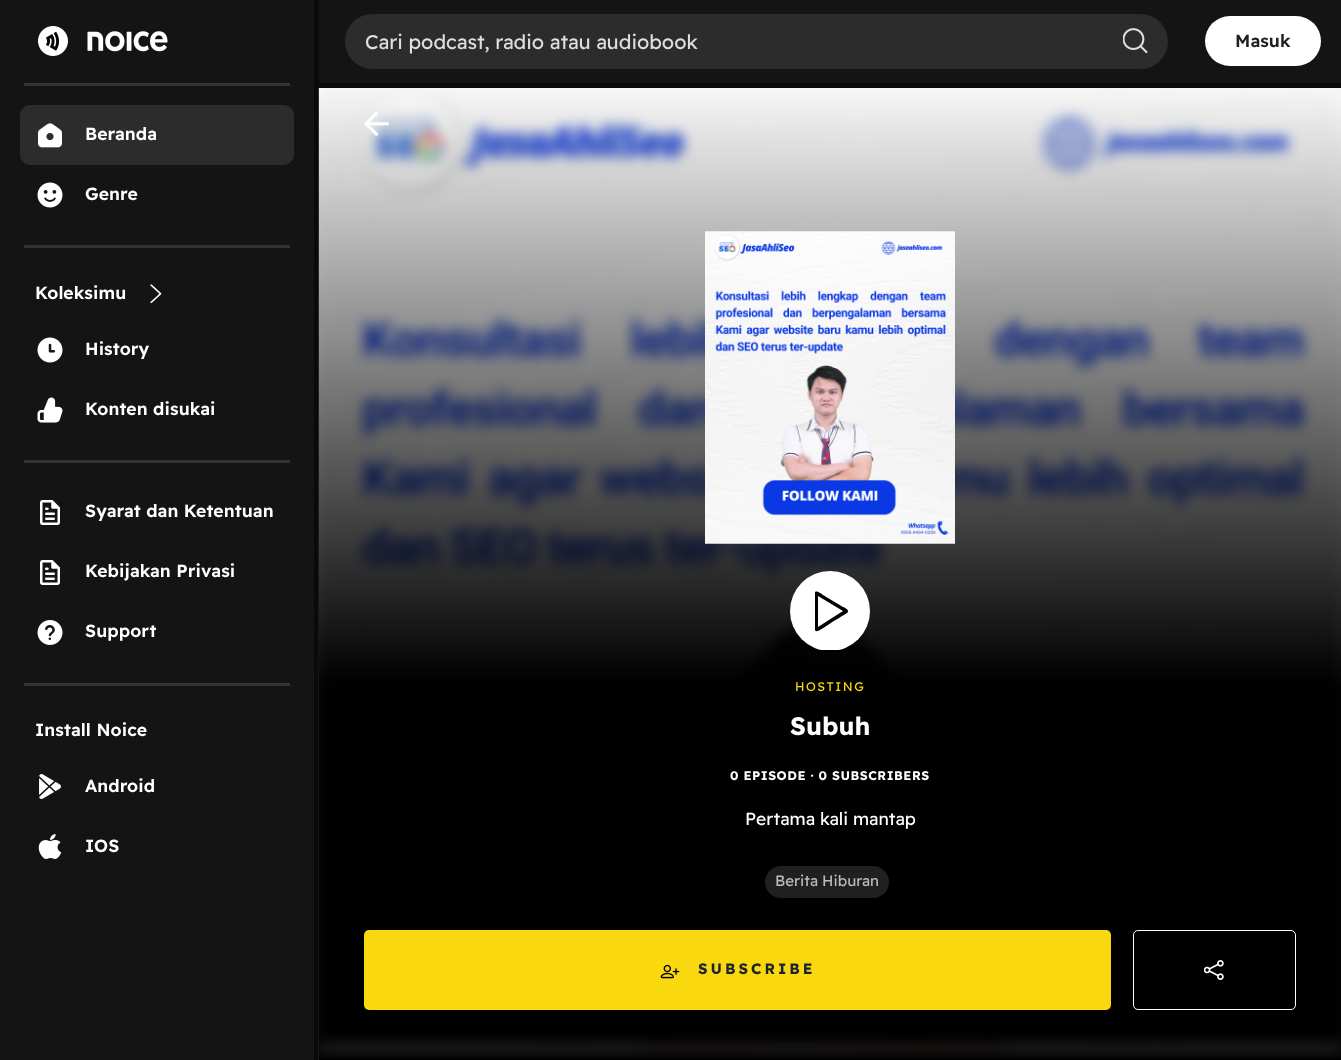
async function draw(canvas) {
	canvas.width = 1341;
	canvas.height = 1060;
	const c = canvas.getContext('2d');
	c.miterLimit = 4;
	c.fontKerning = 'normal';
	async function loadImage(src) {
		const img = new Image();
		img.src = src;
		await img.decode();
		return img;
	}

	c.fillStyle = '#141414';
	c.fillRect(0, 0, 1341, 1060);
	c.fillStyle = '#0a0a0a';
	c.fillRect(314, 0, 5, 1060);
	c.drawImage(await loadImage('img1.png'), 38, 26, 130, 30);
	c.fillStyle = '#333';
	c.fillRect(24, 83, 266, 3);
	c.fillStyle = '#2c2c2c';
	c.beginPath();
	c.roundRect(20, 105, 274, 60, 10);
	c.fill();
	c.drawImage(await loadImage('img2.png'), 38, 123, 24, 25);
	c.letterSpacing = '0.1px';
	c.font = '600 17.5px Readex Pro';
	c.fillStyle = '#fff';
	c.fillText('Beranda', 85, 140);
	c.drawImage(await loadImage('img3.png'), 37, 182, 26, 26);
	c.fillText('Genre', 85, 200);
	c.fillStyle = '#333';
	c.fillRect(24, 245, 266, 3);
	c.fillStyle = '#fff';
	c.fillText('Koleksimu', 35, 299);
	c.drawImage(await loadImage('img4.png'), 150, 284, 12, 20);
	c.drawImage(await loadImage('img5.png'), 37, 337, 26, 26);
	c.fillText('History', 85, 355);
	c.drawImage(await loadImage('img6.png'), 37, 397, 26, 26);
	c.fillText('Konten disukai', 85, 415);
	c.fillStyle = '#333';
	c.fillRect(24, 460, 266, 3);
	c.drawImage(await loadImage('img7.png'), 40, 500, 20, 25);
	c.fillStyle = '#fff';
	c.fillText('Syarat dan Ketentuan', 85, 517);
	c.drawImage(await loadImage('img7.png'), 40, 560, 20, 25);
	c.fillText('Kebijakan Privasi', 85, 577);
	c.drawImage(await loadImage('img8.png'), 37, 620, 26, 25);
	c.fillText('Support', 85, 637);
	c.fillStyle = '#333';
	c.fillRect(24, 683, 266, 3);
	c.fillStyle = '#fff';
	c.fillText('Install Noice', 35, 736);
	c.drawImage(await loadImage('img9.png'), 39, 774, 22, 25);
	c.fillText('Android', 85, 792);
	c.drawImage(await loadImage('img10.png'), 38, 834, 24, 25);
	c.fillText('IOS', 85, 852);
	c.drawImage(await loadImage('img12.png'), 318, 87, 1023, 973);
	c.drawImage(await loadImage('img13.png'), 318, 87, 1023, 972);
	c.fillStyle = '#0a0a0a';
	c.fillRect(319, 83, 1022, 5);
	c.fillStyle = '#2c2c2c';
	c.beginPath();
	c.roundRect(345, 14, 823, 55, 27.5);
	c.fill();
	c.letterSpacing = '0px';
	c.font = '20px Readex Pro';
	c.fillStyle = '#dedede';
	c.fillText('Cari podcast, radio atau audiobook', 365, 49);
	c.drawImage(await loadImage('img11.png'), 1123, 28, 25, 26);
	c.fillStyle = '#fff';
	c.beginPath();
	c.roundRect(1205, 16, 116, 50, 25);
	c.fill();
	c.letterSpacing = '0.1px';
	c.font = '600 17.5px Readex Pro';
	c.fillStyle = '#1f1f1f';
	c.fillText('Masuk', 1235, 47);
	c.drawImage(await loadImage('img14.png'), 364, 111, 25, 25);
	c.drawImage(await loadImage('img15.png'), 705, 231, 250, 313);
	c.save();
	c.beginPath();
	c.rect(790, 571, 80, 79);
	c.clip();
	c.fillStyle = '#fff';
	c.beginPath();
	c.arc(830, 611, 40, 0, 2 * Math.PI);
	c.fill();
	c.restore();
	c.fillStyle = '#000';
	c.beginPath();
	c.moveTo(843, 611);
	c.lineTo(818, 596);
	c.lineTo(818, 627);
	c.closePath();
	c.moveTo(833, 601);
	c.lineTo(843, 607);
	c.bezierCurveTo(843, 607, 849, 609, 848, 612);
	c.bezierCurveTo(848, 613, 830, 623, 828, 625);
	c.bezierCurveTo(820, 630, 816, 633, 815, 630);
	c.lineTo(815, 593);
	c.bezierCurveTo(815, 589, 822, 594, 823, 595);
	c.closePath();
	c.fill();
	c.letterSpacing = '1.5px';
	c.font = '12.5px Readex Pro';
	c.fillStyle = '#fad810';
	c.fillText('HOSTING', 795, 691);
	c.letterSpacing = '0px';
	c.font = 'bold 25px Readex Pro';
	c.fillStyle = '#fff';
	c.fillText('Subuh', 790, 735);
	c.letterSpacing = '0.5px';
	c.font = 'bold 12.5px Readex Pro';
	c.fillText('0 EPISODE · 0 SUBSCRIBERS', 730, 780);
	c.letterSpacing = '0px';
	c.font = '17.5px Readex Pro';
	c.fillText('Pertama kali mantap', 745, 825);
	c.fillStyle = '#202020';
	c.beginPath();
	c.roundRect(765, 866, 124, 32, 16);
	c.fill();
	c.font = '15px Readex Pro';
	c.fillStyle = '#bcbcbc';
	c.fillText('Berita Hiburan', 775, 886);
	c.fillStyle = '#fad810';
	c.beginPath();
	c.roundRect(364, 930, 747, 80, 5);
	c.fill();
	c.drawImage(await loadImage('img16.png'), 660, 964, 20, 15);
	c.letterSpacing = '3px';
	c.font = 'bold 15px Readex Pro';
	c.fillStyle = '#1e222c';
	c.fillText('SUBSCRIBE', 698, 974);
	c.beginPath();
	c.roundRect(1133.5, 930.5, 162, 79, 4.5);
	c.strokeStyle = '#fff';
	c.stroke();
	c.drawImage(await loadImage('img17.png'), 1204, 960, 20, 20);
}

draw(document.querySelector('canvas'));
